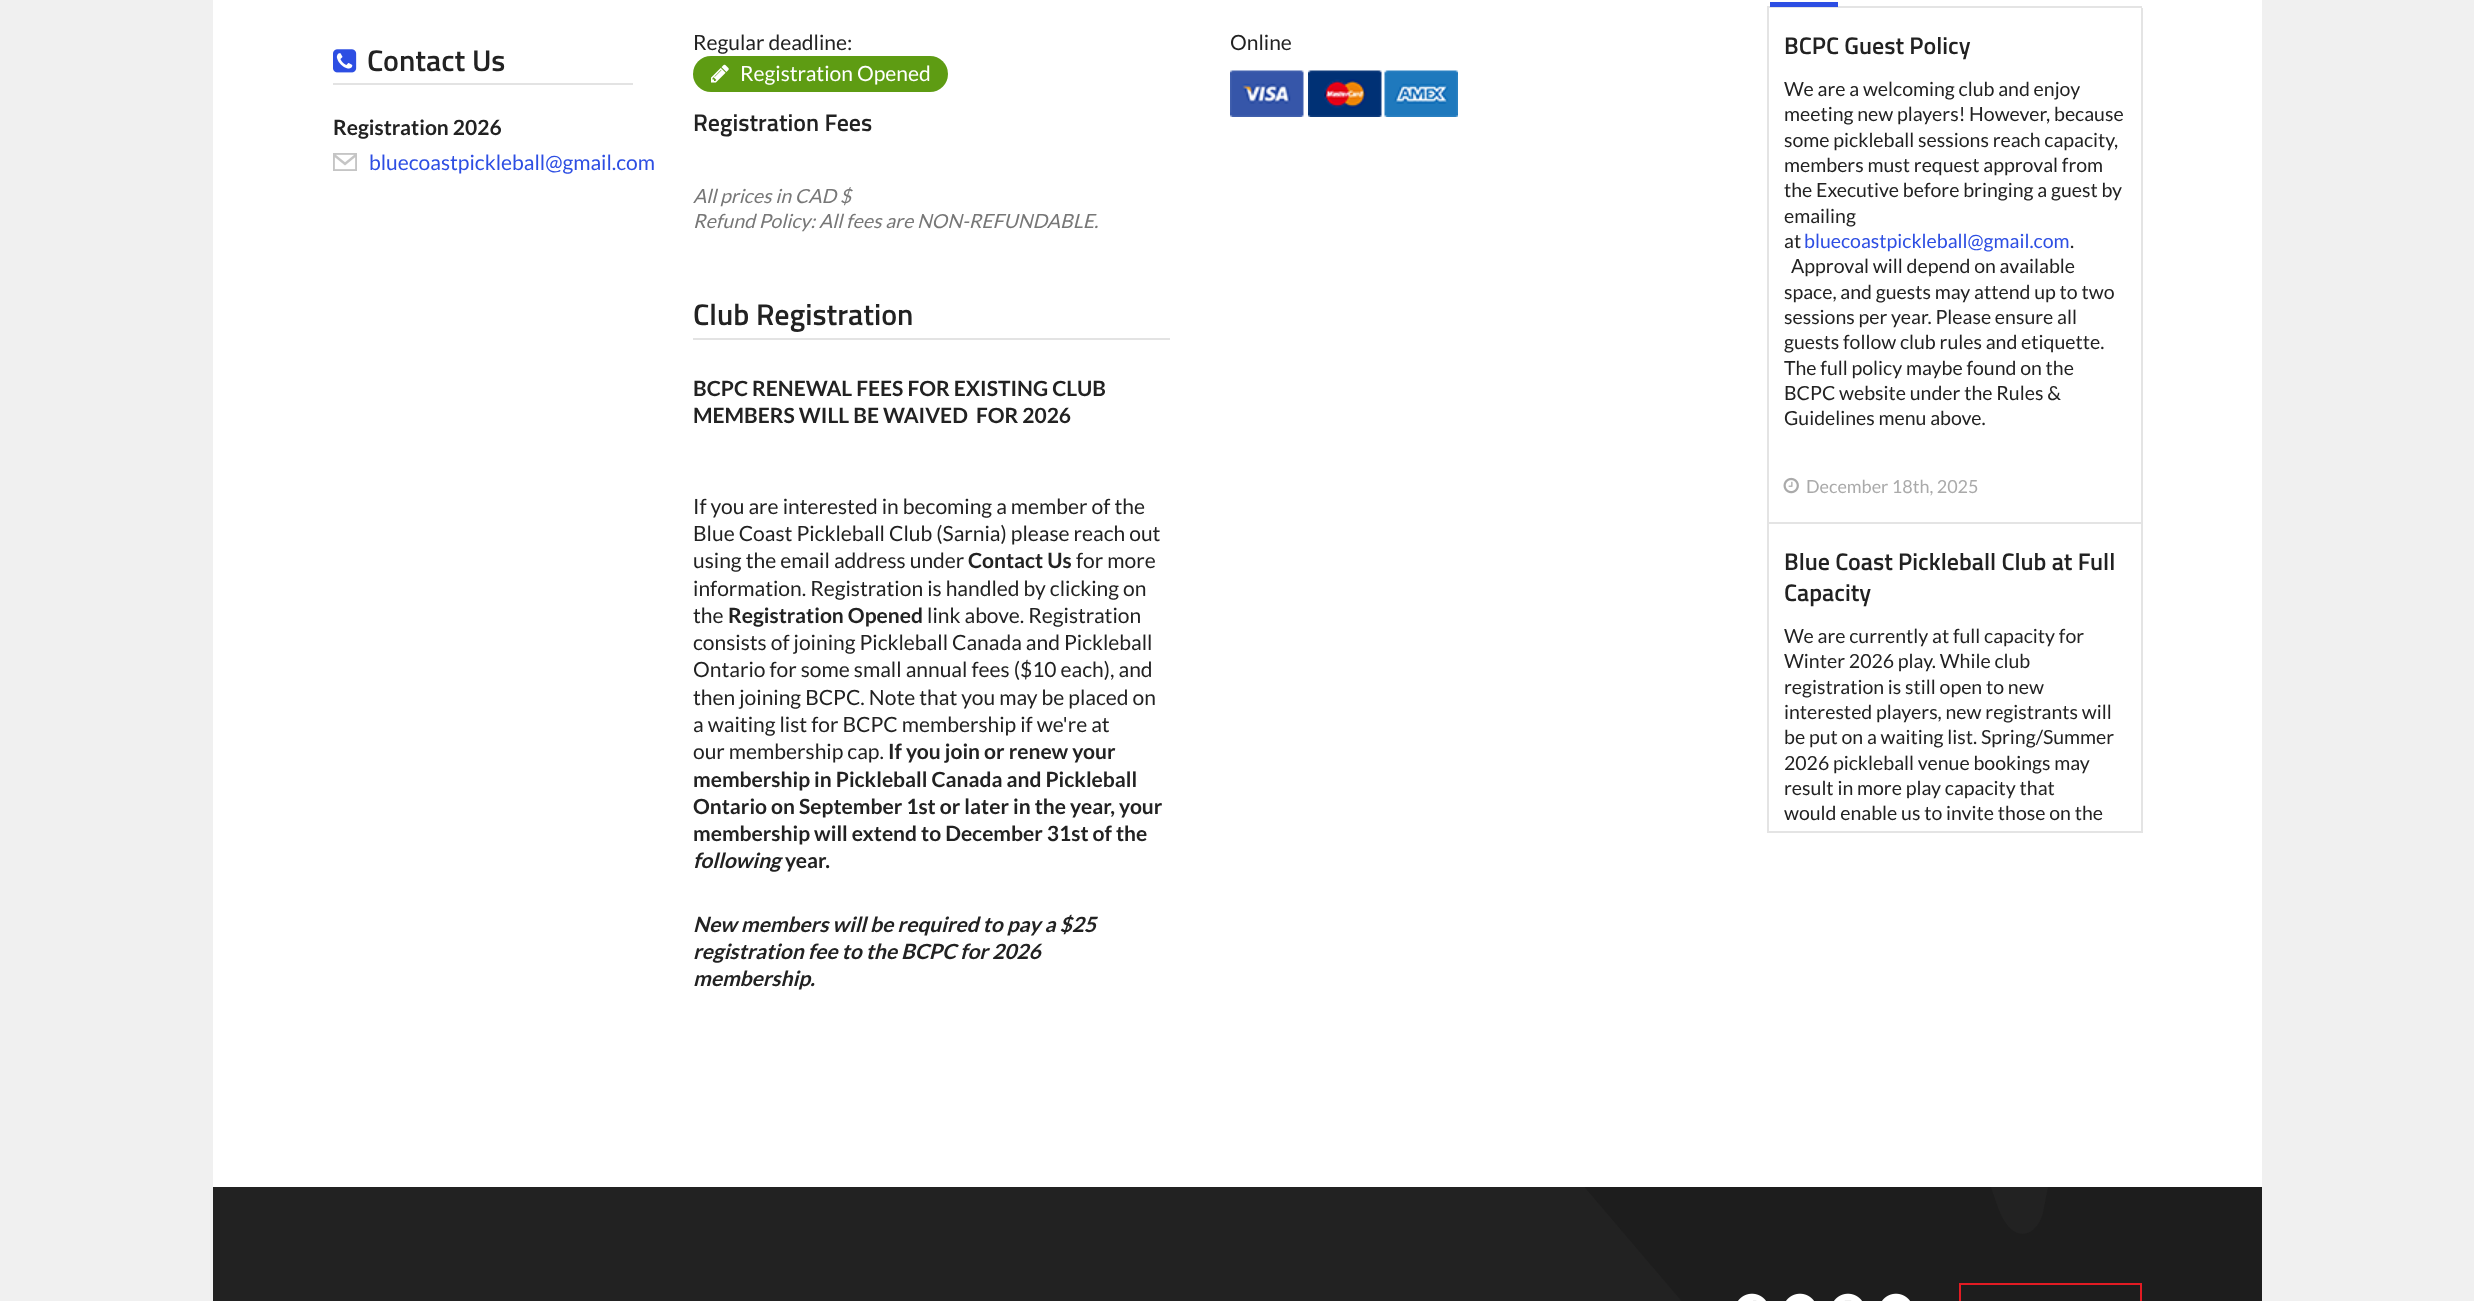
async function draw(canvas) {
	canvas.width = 2474;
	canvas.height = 1301;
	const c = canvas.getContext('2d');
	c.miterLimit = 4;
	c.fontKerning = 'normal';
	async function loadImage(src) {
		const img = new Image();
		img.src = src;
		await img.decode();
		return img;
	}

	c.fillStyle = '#f0f0f0';
	c.fillRect(0, 0, 2474, 1301);
	c.fillStyle = '#fff';
	c.fillRect(213, 0, 2049, 1187);
	c.font = '21px Lato';
	c.fillStyle = '#222';
	c.fillText('Regular deadline:', 693, 50);
	c.fillStyle = '#5e9c13';
	c.beginPath();
	c.roundRect(693, 56, 255, 36, 18);
	c.fill();
	c.drawImage(await loadImage('img1.png'), 711, 64, 18, 19);
	c.fillStyle = '#fff';
	c.fillText('Registration Opened', 740, 81);
	c.font = '600 24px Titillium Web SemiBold';
	c.fillStyle = '#222';
	c.fillText('Registration Fees', 693, 131);
	c.font = 'italic 19.5px Lato';
	c.fillStyle = '#777';
	c.fillText('All prices in CAD $', 693, 203);
	c.fillText('Refund Policy: All fees are NON-REFUNDABLE.', 693, 228);
	c.fillStyle = '#e3e3e3';
	c.fillRect(693, 338, 477, 2);
	c.font = '600 30px Titillium Web SemiBold';
	c.fillStyle = '#222';
	c.fillText('Club Registration', 693, 325);
	c.font = 'bold 21px Lato';
	c.fillText('BCPC RENEWAL FEES FOR EXISTING CLUB', 693, 396);
	c.fillText('MEMBERS WILL BE WAIVED  FOR 2026', 693, 423);
	c.font = '21px Lato';
	for (const [text, x, y] of [
		['If you are interested in becoming a member of the', 693, 514],
		['Blue Coast Pickleball Club (Sarnia) please reach out', 693, 541],
		['using the email address under', 693, 568],
	]) {
		c.fillText(text, x, y);
	}
	c.font = 'bold 21px Lato';
	c.fillText('Contact Us', 968, 568);
	c.font = '21px Lato';
	for (const [text, x, y] of [
		['for more', 1076, 568],
		['information. Registration is handled by clicking on', 693, 596],
		['the', 693, 623],
	]) {
		c.fillText(text, x, y);
	}
	c.font = 'bold 21px Lato';
	c.fillText('Registration Opened', 728, 623);
	c.font = '21px Lato';
	for (const [text, x, y] of [
		['link above. Registration', 927, 623],
		['consists of joining Pickleball Canada and Pickleball', 693, 650],
		['Ontario for some small annual fees ($10 each), and', 693, 677],
		['then joining BCPC. Note that you may be placed on', 693, 705],
		['a waiting list for BCPC membership if we\'re at', 693, 732],
		['our membership cap.', 693, 759],
	]) {
		c.fillText(text, x, y);
	}
	c.font = 'bold 21px Lato';
	for (const [text, x, y] of [
		['If you join or renew your', 888, 759],
		['membership in Pickleball Canada and Pickleball', 693, 787],
		['Ontario on September 1st or later in the year, your', 693, 814],
		['membership will extend to December 31st of the', 693, 841],
	]) {
		c.fillText(text, x, y);
	}
	c.font = 'italic bold 21px Lato';
	c.fillText('following', 693, 868);
	c.font = 'bold 21px Lato';
	c.fillText('year.', 785, 868);
	c.font = 'italic bold 21px Lato';
	for (const [text, x, y] of [
		['New members will be required to pay a $25', 693, 932],
		['registration fee to the BCPC for 2026', 693, 959],
		['membership.', 693, 986],
	]) {
		c.fillText(text, x, y);
	}
	c.font = '21px Lato';
	c.fillText('Online', 1230, 50);
	c.drawImage(await loadImage('img2.png'), 1230, 70, 74, 47);
	c.drawImage(await loadImage('img3.png'), 1308, 70, 74, 47);
	c.drawImage(await loadImage('img4.png'), 1384, 70, 74, 47);
	c.fillStyle = '#e3e3e3';
	c.fillRect(333, 83, 300, 2);
	c.drawImage(await loadImage('img5.png'), 333, 49, 24, 24);
	c.font = '600 30px Titillium Web SemiBold';
	c.fillStyle = '#222';
	c.fillText('Contact Us', 367, 71);
	c.font = 'bold 21px Lato';
	c.fillText('Registration 2026', 333, 135);
	c.drawImage(await loadImage('img6.png'), 333, 153, 24, 18);
	c.font = '21px Lato';
	c.fillStyle = '#2d4ee3';
	c.fillText('bluecoastpickleball@gmail.com', 369, 170);
	for (const [x, y, w, h, color] of [
		[1767, 6, 375, 2, '#e4e4e4'],
		[1770, 2, 68, 5, '#2d4ee3'],
		[2141, 8, 2, 825, '#e4e4e4'],
		[1767, 831, 375, 2, '#e4e4e4'],
		[1767, 8, 2, 825, '#e4e4e4'],
		[1769, 522, 372, 2, '#e4e4e4'],
	]) {
		c.fillStyle = color;
		c.fillRect(x, y, w, h);
	}
	c.font = '600 24px Titillium Web SemiBold';
	c.fillStyle = '#222';
	c.fillText('BCPC Guest Policy', 1784, 54);
	c.font = '19.5px Lato';
	for (const [text, x, y] of [
		['We are a welcoming club and enjoy', 1784, 96],
		['meeting new players! However, because', 1784, 121],
		['some pickleball sessions reach capacity,', 1784, 147],
		['members must request approval from', 1784, 172],
		['the Executive before bringing a guest by', 1784, 197],
		['emailing', 1784, 223],
		['at', 1784, 248],
	]) {
		c.fillText(text, x, y);
	}
	c.fillStyle = '#2d4ee3';
	c.fillText('bluecoastpickleball@gmail.com', 1804, 248);
	c.fillStyle = '#222';
	for (const [text, x, y] of [
		['.', 2070, 248],
		['Approval will depend on available', 1791, 273],
		['space, and guests may attend up to two', 1784, 299],
		['sessions per year. Please ensure all', 1784, 324],
		['guests follow club rules and etiquette.', 1784, 349],
		['The full policy maybe found on the', 1784, 375],
		['BCPC website under the Rules &', 1784, 400],
		['Guidelines menu above.', 1784, 425],
	]) {
		c.fillText(text, x, y);
	}
	c.drawImage(await loadImage('img7.png'), 1783, 477, 16, 17);
	c.font = '18px Lato';
	c.fillStyle = '#aaa';
	c.fillText('December 18th, 2025', 1806, 493);
	c.font = '600 24px Titillium Web SemiBold';
	c.fillStyle = '#222';
	c.fillText('Blue Coast Pickleball Club at Full', 1784, 570);
	c.fillText('Capacity', 1784, 601);
	c.font = '19.5px Lato';
	for (const [text, x, y] of [
		['We are currently at full capacity for', 1784, 643],
		['Winter 2026 play. While club', 1784, 668],
		['registration is still open to new', 1784, 694],
		['interested players, new registrants will', 1784, 719],
		['be put on a waiting list. Spring/Summer', 1784, 744],
		['2026 pickleball venue bookings may', 1784, 770],
		['result in more play capacity that', 1784, 795],
		['would enable us to invite those on the', 1784, 820],
	]) {
		c.fillText(text, x, y);
	}
	c.fillRect(213, 1187, 1835, 114);
	c.drawImage(await loadImage('img8.png'), 1585, 1187, 677, 114);
	c.drawImage(await loadImage('img9.png'), 1738, 1293, 28, 8);
	c.drawImage(await loadImage('img10.png'), 1786, 1293, 28, 8);
	c.drawImage(await loadImage('img11.png'), 1834, 1293, 28, 8);
	c.drawImage(await loadImage('img10.png'), 1882, 1293, 28, 8);
	c.strokeStyle = '#e21b23';
	c.lineWidth = 2;
	c.strokeRect(1960, 1284, 181, 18);
}

draw(document.querySelector('canvas'));
